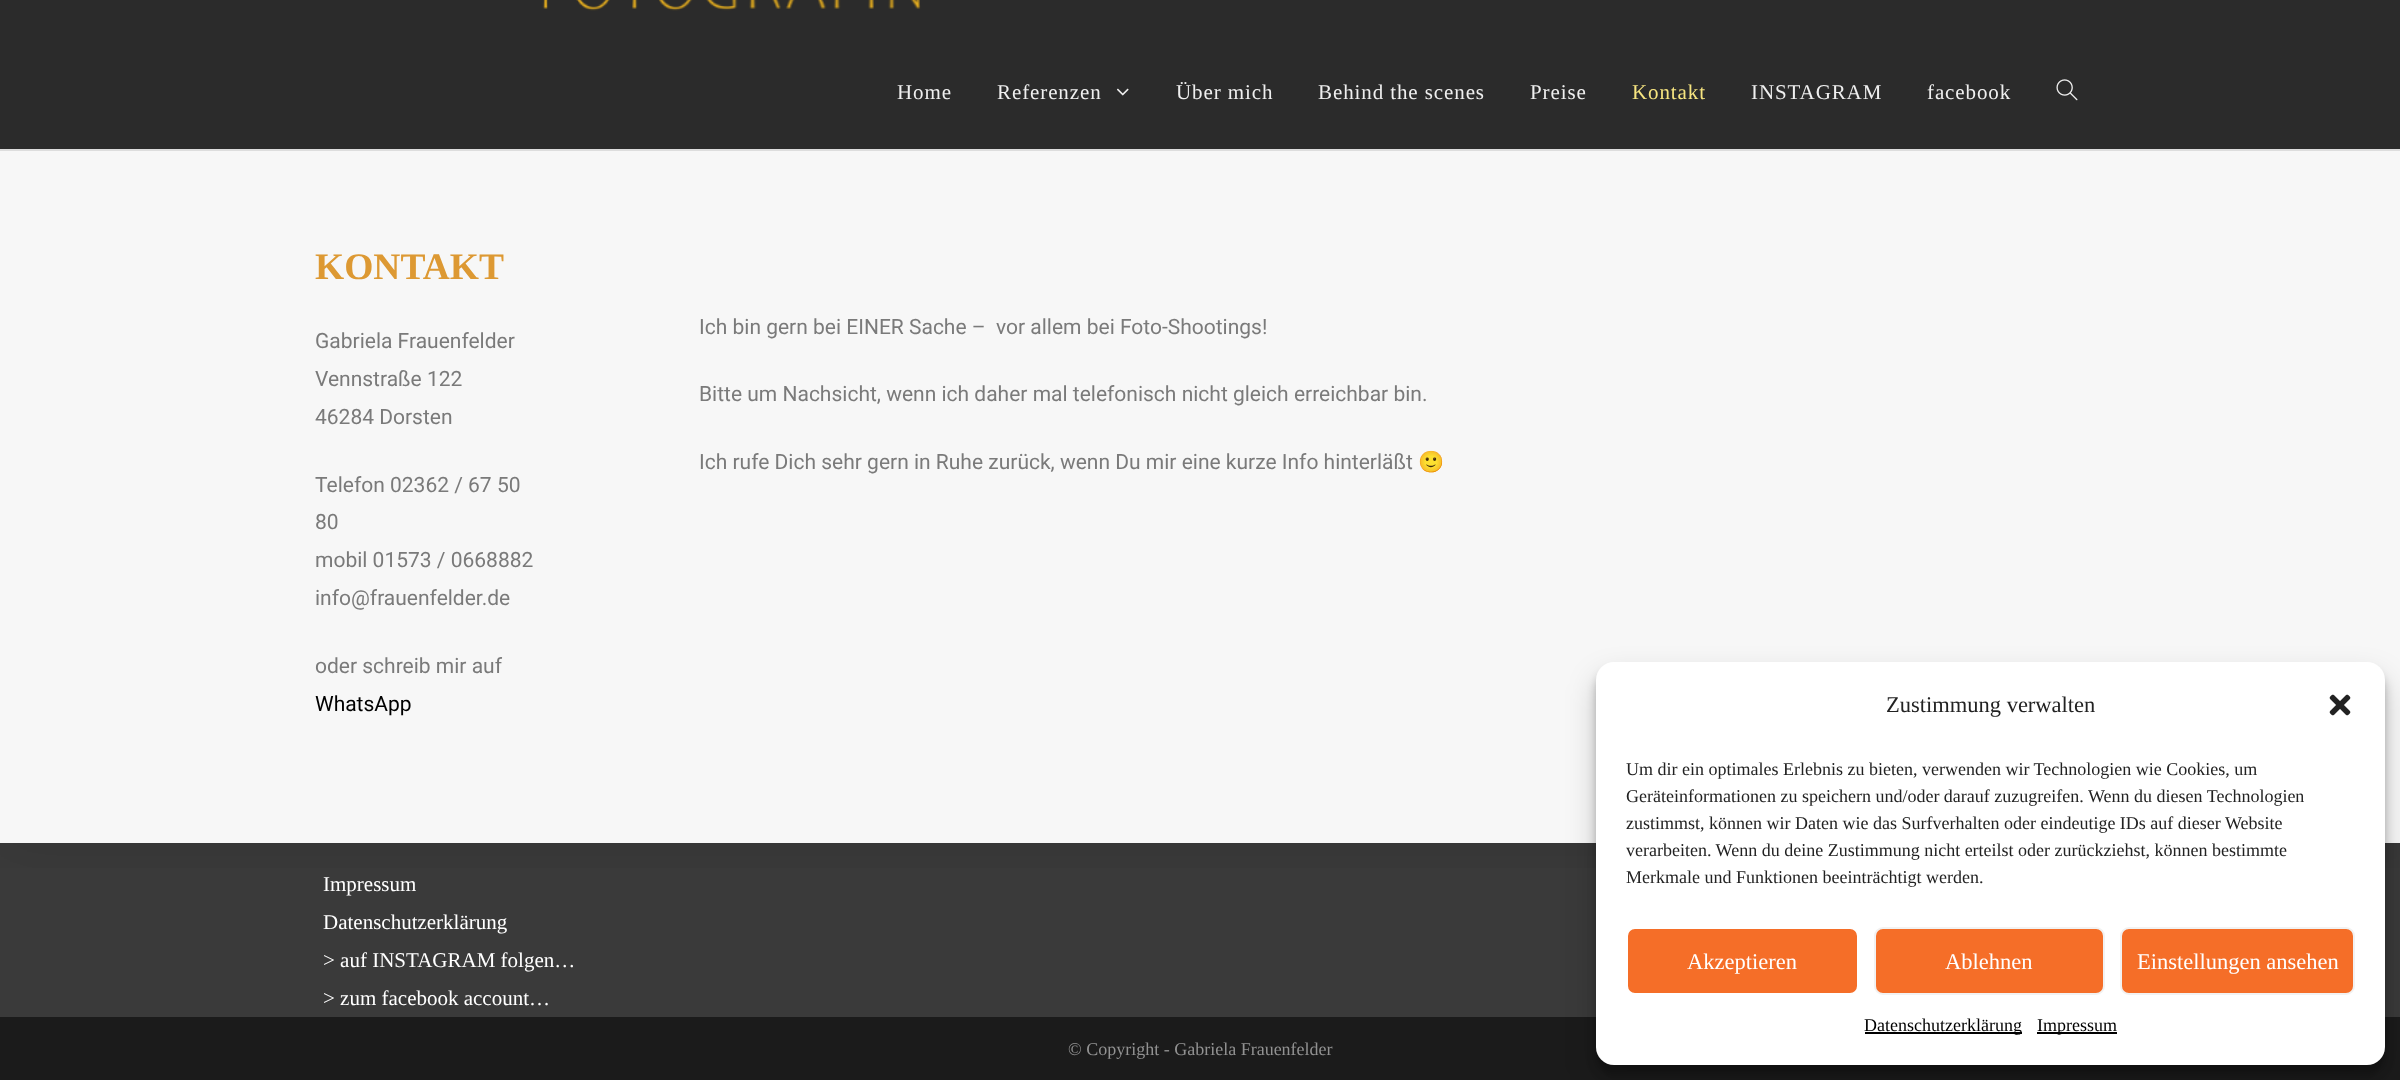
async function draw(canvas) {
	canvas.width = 2400;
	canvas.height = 1080;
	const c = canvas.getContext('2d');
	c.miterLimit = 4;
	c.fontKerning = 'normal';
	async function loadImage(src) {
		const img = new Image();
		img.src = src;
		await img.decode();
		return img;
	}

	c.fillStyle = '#f7f7f7';
	c.fillRect(0, 0, 2400, 1080);
	c.fillStyle = '#3a3a3a';
	c.fillRect(0, 843, 2400, 174);
	c.save();
	c.beginPath();
	c.rect(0, 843, 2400, 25);
	c.clip();
	c.fillStyle = '#0000001a';
	c.filter = 'blur(30px)';
	c.beginPath();
	c.rect(0, 150, 2400, 693);
	c.fill();
	c.filter = 'none';
	c.restore();
	c.fillStyle = '#2b2b2b';
	c.fillRect(0, 0, 2400, 149);
	c.fillStyle = '#ddd';
	c.fillRect(0, 149, 2400, 2);
	c.drawImage(await loadImage('img1.png'), 542, 0, 379, 11);
	c.letterSpacing = '0.9px';
	c.font = '21px Liberation Serif';
	c.fillStyle = '#efefef';
	c.fillText('Home', 897, 99);
	c.fillText('Referenzen', 997, 99);
	c.drawImage(await loadImage('img2.png'), 1116, 88, 13, 8);
	for (const [text, x, y] of [
		['Über mich', 1176, 99],
		['Behind the scenes', 1318, 99],
		['Preise', 1530, 99],
	]) {
		c.fillText(text, x, y);
	}
	c.fillStyle = '#f7e580';
	c.fillText('Kontakt', 1632, 99);
	c.fillStyle = '#efefef';
	c.fillText('INSTAGRAM', 1751, 99);
	c.fillText('facebook', 1927, 99);
	c.drawImage(await loadImage('img3.png'), 2056, 79, 22, 22);
	c.letterSpacing = '0px';
	c.font = 'bold 37.5px Liberation Serif';
	c.fillStyle = '#d93';
	c.fillText('KONTAKT', 315, 279);
	c.font = '21px Roboto';
	c.fillStyle = '#7a7a7a';
	for (const [text, x, y] of [
		['Gabriela Frauenfelder', 315, 348],
		['Vennstraße 122', 315, 386],
		['46284 Dorsten', 315, 424],
		['Telefon 02362 / 67 50', 315, 492],
		['80', 315, 529],
		['mobil 01573 / 0668882', 315, 567],
		['info@frauenfelder.de', 315, 605],
		['oder schreib mir auf', 315, 673],
	]) {
		c.fillText(text, x, y);
	}
	c.fillStyle = '#000';
	c.fillText('WhatsApp', 315, 711);
	c.fillStyle = '#7a7a7a';
	for (const [text, x, y] of [
		['Ich bin gern bei EINER Sache –  vor allem bei Foto-Shootings!', 699, 334],
		['Bitte um Nachsicht, wenn ich daher mal telefonisch nicht gleich erreichbar bin.', 699, 401],
		['Ich rufe Dich sehr gern in Ruhe zurück, wenn Du mir eine kurze Info hinterläßt', 699, 469],
	]) {
		c.fillText(text, x, y);
	}
	c.font = '21px Noto Color Emoji';
	c.fillText('🙂', 1418, 469);
	c.font = '21px Liberation Serif';
	c.fillStyle = '#fff';
	for (const [text, x, y] of [
		['Impressum', 323, 891],
		['Datenschutzerklärung', 323, 929],
		['> auf INSTAGRAM folgen…', 323, 967],
		['> zum facebook account…', 323, 1005],
	]) {
		c.fillText(text, x, y);
	}
	c.fillStyle = '#1b1b1b';
	c.fillRect(0, 1017, 2400, 63);
	c.font = '18px Liberation Serif';
	c.fillStyle = '#929292';
	c.fillText('© Copyright - Gabriela Frauenfelder', 1068, 1055);
	c.fillStyle = '#0000003b';
	c.filter = 'blur(4.5px)';
	c.beginPath();
	c.roundRect(1596, 671, 789, 403, 18);
	c.fill();
	c.filter = 'none';
	c.fillStyle = '#00000030';
	c.filter = 'blur(15px)';
	c.beginPath();
	c.roundRect(1596, 677, 789, 403, 18);
	c.fill();
	c.filter = 'none';
	c.fillStyle = '#fff';
	c.beginPath();
	c.roundRect(1596, 662, 789, 403, 18);
	c.fill();
	c.font = '22.5px Liberation Serif';
	c.fillStyle = '#222';
	c.fillText('Zustimmung verwalten', 1886, 712);
	c.drawImage(await loadImage('img4.png'), 2329, 694, 22, 22);
	c.font = '18px Liberation Serif';
	for (const [text, x, y] of [
		['Um dir ein optimales Erlebnis zu bieten, verwenden wir Technologien wie Cookies, um', 1626, 775],
		['Geräteinformationen zu speichern und/oder darauf zuzugreifen. Wenn du diesen Technologien', 1626, 802],
		['zustimmst, können wir Daten wie das Surfverhalten oder eindeutige IDs auf dieser Website', 1626, 829],
		['verarbeiten. Wenn du deine Zustimmung nicht erteilst oder zurückziehst, können bestimmte', 1626, 856],
		['Merkmale und Funktionen beeinträchtigt werden.', 1626, 883],
	]) {
		c.fillText(text, x, y);
	}
	c.fillStyle = '#f56e28';
	c.beginPath();
	c.roundRect(1627, 928, 231, 66, 8);
	c.fill();
	c.strokeStyle = '#fff';
	c.lineWidth = 2;
	c.stroke();
	c.font = '22.5px Liberation Serif';
	c.fillStyle = '#fff';
	c.fillText('Akzeptieren', 1687, 969);
	c.fillStyle = '#f56e28';
	c.beginPath();
	c.roundRect(1875, 928, 229, 66, 8);
	c.fill();
	c.strokeStyle = '#f2f2f2';
	c.stroke();
	c.fillStyle = '#fff';
	c.fillText('Ablehnen', 1945, 969);
	c.fillStyle = '#f56e28';
	c.beginPath();
	c.roundRect(2121, 928, 233, 66, 8);
	c.fill();
	c.stroke();
	c.fillStyle = '#fff';
	c.fillText('Einstellungen ansehen', 2137, 969);
	c.fillStyle = '#000';
	c.fillRect(1865, 1032, 157, 2);
	c.font = '18px Liberation Serif';
	c.fillText('Datenschutzerklärung', 1864, 1031);
	c.fillRect(2037, 1032, 80, 2);
	c.fillText('Impressum', 2037, 1031);
}

draw(document.querySelector('canvas'));
